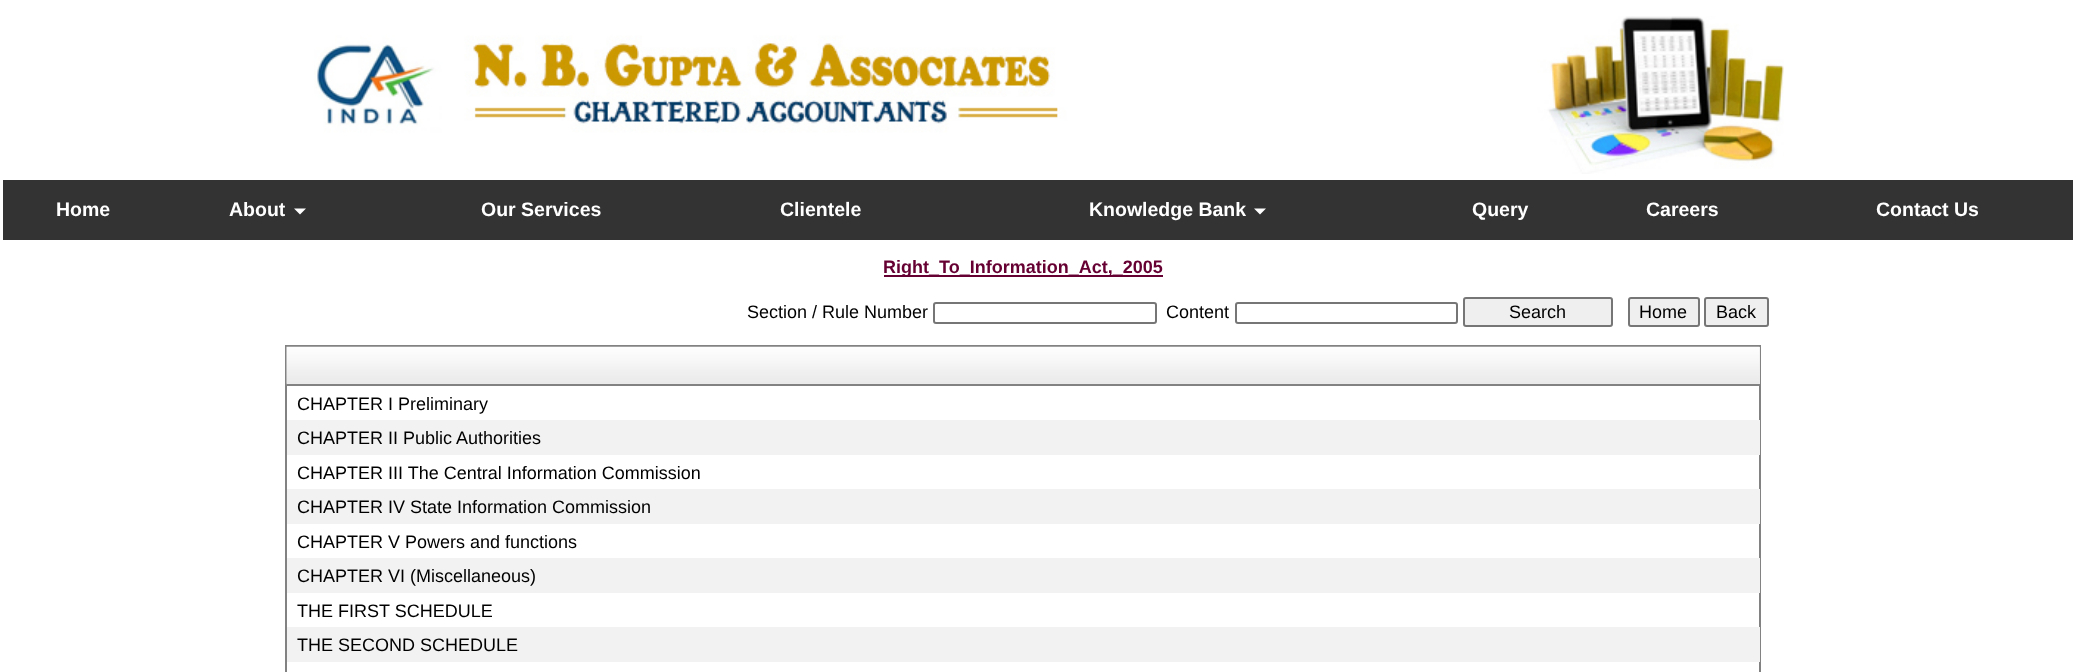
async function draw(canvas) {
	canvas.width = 2075;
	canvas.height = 672;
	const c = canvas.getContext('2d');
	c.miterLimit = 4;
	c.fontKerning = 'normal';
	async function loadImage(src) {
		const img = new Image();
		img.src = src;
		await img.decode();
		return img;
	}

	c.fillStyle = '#fff';
	c.fillRect(0, 0, 2075, 672);
	c.drawImage(await loadImage('img1.png'), 314, 16, 1470, 158);
	c.fillStyle = '#333';
	c.fillRect(3, 180, 2070, 60);
	c.font = 'bold 19.5px Liberation Sans';
	c.fillStyle = '#fff';
	c.fillText('Home', 56, 216);
	c.fillText('About', 229, 216);
	c.beginPath();
	c.moveTo(294, 208.5);
	c.lineTo(306, 208.5);
	c.lineTo(300, 214.5);
	c.closePath();
	c.fill();
	for (const [text, x, y] of [
		['Our Services', 481, 216],
		['Clientele', 780, 216],
		['Knowledge Bank', 1089, 216],
	]) {
		c.fillText(text, x, y);
	}
	c.beginPath();
	c.moveTo(1254, 208.5);
	c.lineTo(1266, 208.5);
	c.lineTo(1260, 214.5);
	c.closePath();
	c.fill();
	for (const [text, x, y] of [
		['Query', 1472, 216],
		['Careers', 1646, 216],
		['Contact Us', 1876, 216],
	]) {
		c.fillText(text, x, y);
	}
	c.fillStyle = '#603';
	c.fillRect(884, 275, 279, 2);
	c.font = 'bold 18px Liberation Sans';
	c.fillText('Right_To_Information_Act,_2005', 883, 273);
	c.font = '18px Liberation Sans';
	c.fillStyle = '#000';
	c.fillText('Section / Rule Number', 747, 318);
	c.beginPath();
	c.roundRect(934, 303, 222, 20, 2);
	c.strokeStyle = '#767676';
	c.lineWidth = 2;
	c.stroke();
	c.fillText('Content', 1166, 318);
	c.beginPath();
	c.roundRect(1236, 303, 221, 20, 2);
	c.stroke();
	c.fillStyle = '#efefef';
	c.beginPath();
	c.roundRect(1464, 298, 148, 28, 2);
	c.fill();
	c.stroke();
	c.fillStyle = '#000';
	c.fillText('Search', 1509, 318);
	c.fillStyle = '#efefef';
	c.beginPath();
	c.roundRect(1629, 298, 70, 28, 2);
	c.fill();
	c.stroke();
	c.fillStyle = '#000';
	c.fillText('Home', 1639, 318);
	c.fillStyle = '#efefef';
	c.beginPath();
	c.roundRect(1705, 298, 63, 28, 2);
	c.fill();
	c.stroke();
	c.fillStyle = '#000';
	c.fillText('Back', 1716, 318);
	c.strokeStyle = '#828282';
	c.strokeRect(286, 346, 1474, 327);
	c.fillStyle = '#eaeaea';
	c.fillRect(287, 347, 1473, 37);
	c.drawImage(await loadImage('img2.png'), 286, 346, 1474, 39);
	c.fillStyle = '#828282';
	c.fillRect(287, 384, 1473, 2);
	c.fillStyle = '#000';
	c.fillText('CHAPTER I Preliminary', 297, 410);
	c.fillStyle = '#f2f2f2';
	c.fillRect(287, 420, 1473, 35);
	c.fillStyle = '#000';
	c.fillText('CHAPTER II Public Authorities', 297, 444);
	c.fillText('CHAPTER III The Central Information Commission', 297, 479);
	c.fillStyle = '#f2f2f2';
	c.fillRect(287, 489, 1473, 35);
	c.fillStyle = '#000';
	c.fillText('CHAPTER IV State Information Commission', 297, 513);
	c.fillText('CHAPTER V Powers and functions', 297, 548);
	c.fillStyle = '#f2f2f2';
	c.fillRect(287, 558, 1473, 35);
	c.fillStyle = '#000';
	c.fillText('CHAPTER VI (Miscellaneous)', 297, 582);
	c.fillText('THE FIRST SCHEDULE', 297, 617);
	c.fillStyle = '#f2f2f2';
	c.fillRect(287, 627, 1473, 35);
	c.fillStyle = '#000';
	c.fillText('THE SECOND SCHEDULE', 297, 651);
}

draw(document.querySelector('canvas'));
